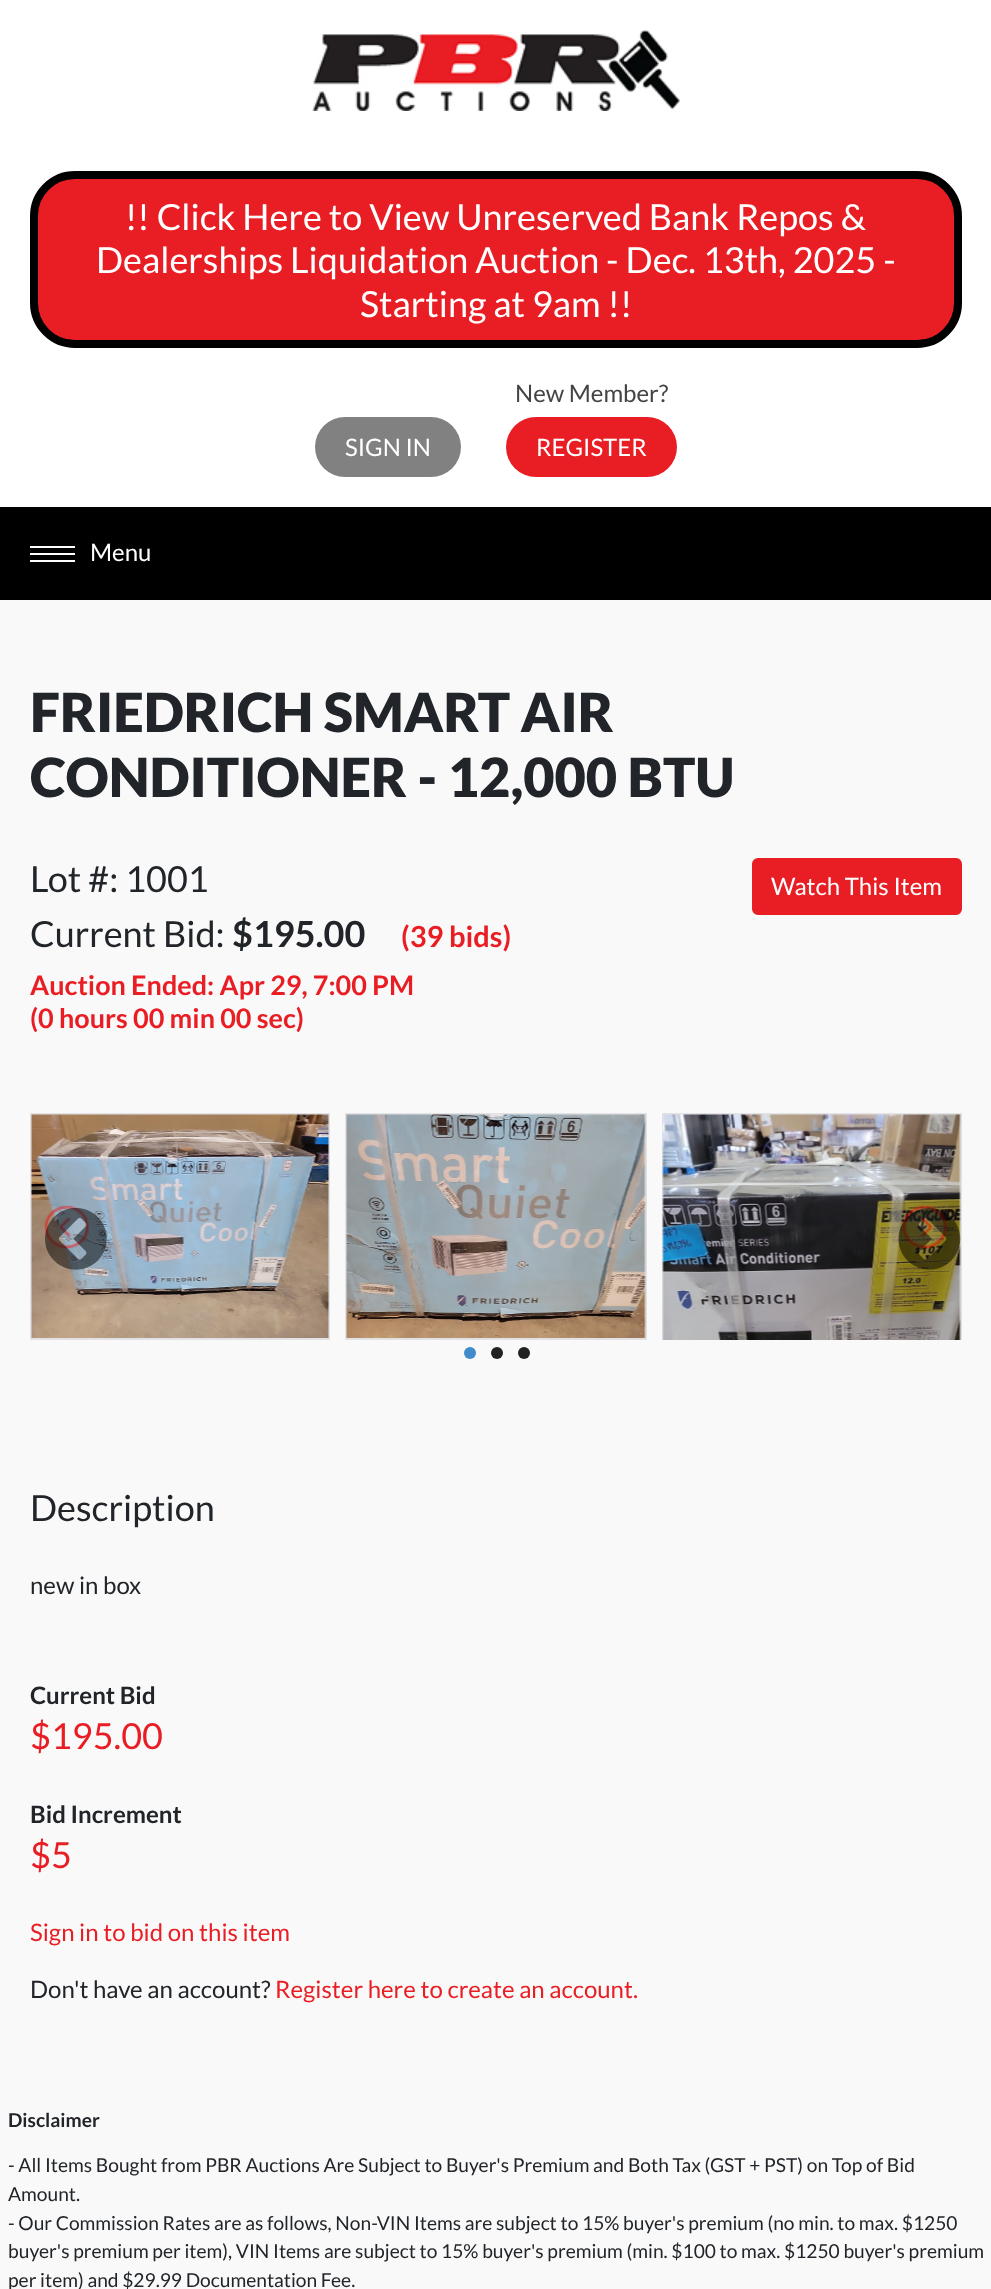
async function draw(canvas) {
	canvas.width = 991;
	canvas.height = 2289;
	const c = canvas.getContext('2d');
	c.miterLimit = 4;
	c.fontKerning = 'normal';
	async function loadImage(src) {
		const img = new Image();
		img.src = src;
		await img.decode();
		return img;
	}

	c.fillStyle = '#f9f9f9';
	c.fillRect(0, 0, 991, 2289);
	c.fillStyle = '#fff';
	c.fillRect(0, 0, 991, 507);
	c.drawImage(await loadImage('img1.png'), 312, 30, 368, 81);
	c.fillStyle = '#e91e24';
	c.beginPath();
	c.roundRect(34, 175, 924, 169, 41);
	c.fill();
	c.strokeStyle = '#000';
	c.lineWidth = 8;
	c.stroke();
	c.font = '36px Lato';
	c.fillStyle = '#fff';
	for (const [text, x, y] of [
		['!! Click Here to View Unreserved Bank Repos &', 125, 230],
		['Dealerships Liquidation Auction - Dec. 13th, 2025 -', 96, 273],
		['Starting at 9am !!', 360, 317],
	]) {
		c.fillText(text, x, y);
	}
	c.fillStyle = '#818181';
	c.beginPath();
	c.roundRect(315, 417, 146, 60, 30);
	c.fill();
	c.font = '24px Lato';
	c.fillStyle = '#fff';
	c.fillText('SIGN IN', 345, 456);
	c.fillStyle = '#444';
	c.fillText('New Member?', 515, 402);
	c.fillStyle = '#e91e24';
	c.beginPath();
	c.roundRect(506, 417, 171, 60, 30);
	c.fill();
	c.fillStyle = '#fff';
	c.fillText('REGISTER', 536, 456);
	c.fillStyle = '#000';
	c.fillRect(0, 507, 991, 93);
	c.fillStyle = '#fff';
	c.beginPath();
	c.moveTo(30, 562);
	c.lineTo(30, 560);
	c.lineTo(75, 560);
	c.lineTo(75, 562);
	c.closePath();
	c.moveTo(30, 555);
	c.lineTo(30, 553);
	c.lineTo(75, 553);
	c.lineTo(75, 555);
	c.closePath();
	c.moveTo(30, 548);
	c.lineTo(30, 546);
	c.lineTo(75, 546);
	c.lineTo(75, 548);
	c.closePath();
	c.fill();
	c.fillText('Menu', 90, 561);
	c.font = '900 54px Lato';
	c.fillStyle = '#212529';
	c.fillText('FRIEDRICH SMART AIR', 30, 732);
	c.fillText('CONDITIONER - 12,000 BTU', 30, 797);
	c.font = '36px Lato';
	c.fillText('Lot #: 1001', 30, 892);
	c.fillStyle = '#e91e24';
	c.beginPath();
	c.roundRect(753, 859, 208, 55, 5);
	c.fill();
	c.strokeStyle = '#e91e24';
	c.lineWidth = 2;
	c.stroke();
	c.font = '24px Lato';
	c.fillStyle = '#fff';
	c.fillText('Watch This Item', 771, 895);
	c.font = '36px Lato';
	c.fillStyle = '#212529';
	c.fillText('Current Bid:', 30, 947);
	c.font = 'bold 36px Lato';
	c.fillText('$195.00', 232, 947);
	c.font = 'bold 29px Lato';
	c.fillStyle = '#e91e24';
	c.fillText('(39 bids)', 401, 947);
	c.font = 'bold 27px Lato';
	c.fillText('Auction Ended: Apr 29, 7:00 PM', 30, 995);
	c.fillText('(0 hours 00 min 00 sec)', 30, 1028);
	c.strokeStyle = '#e2e2e5';
	c.strokeRect(31, 1114, 298, 225);
	c.drawImage(await loadImage('img2.png'), 31, 1114, 298, 224);
	c.strokeRect(346, 1114, 300, 225);
	c.drawImage(await loadImage('img3.png'), 346, 1114, 300, 224);
	c.save();
	c.beginPath();
	c.rect(30, 1113, 932, 227);
	c.clip();
	c.strokeRect(663, 1114, 298, 399);
	c.restore();
	c.drawImage(await loadImage('img4.png'), 662, 1114, 299, 226);
	c.drawImage(await loadImage('img5.png'), 45, 1205, 44, 44);
	c.drawImage(await loadImage('img6.png'), 45, 1207, 62, 63);
	c.drawImage(await loadImage('img7.png'), 902, 1205, 45, 44);
	c.drawImage(await loadImage('img8.png'), 898, 1207, 63, 63);
	c.fillStyle = '#428bca';
	c.beginPath();
	c.arc(470, 1353, 6, 0, 2 * Math.PI);
	c.fill();
	c.fillStyle = '#222';
	c.beginPath();
	c.arc(497, 1353, 6, 0, 2 * Math.PI);
	c.fill();
	c.beginPath();
	c.arc(524, 1353, 6, 0, 2 * Math.PI);
	c.fill();
	c.font = '36px Lato';
	c.fillStyle = '#212529';
	c.fillText('Description', 30, 1521);
	c.font = '24px Lato';
	c.fillText('new in box', 30, 1594);
	c.font = 'bold 24px Lato';
	c.fillText('Current Bid', 30, 1704);
	c.font = '36px Lato';
	c.fillStyle = '#e91e24';
	c.fillText('$195.00', 30, 1749);
	c.font = 'bold 24px Lato';
	c.fillStyle = '#212529';
	c.fillText('Bid Increment', 30, 1823);
	c.font = '36px Lato';
	c.fillStyle = '#e91e24';
	c.fillText('$5', 30, 1868);
	c.font = '24px Lato';
	c.fillText('Sign in to bid on this item', 30, 1941);
	c.fillStyle = '#212529';
	c.fillText('Don\'t have an account?', 30, 1998);
	c.fillStyle = '#e91e24';
	c.fillText('Register here to create an account.', 275, 1998);
	c.font = 'bold 19.2px Lato';
	c.fillStyle = '#212529';
	c.fillText('Disclaimer', 8, 2127);
	c.font = '19.2px Lato';
	for (const [text, x, y] of [
		['- All Items Bought from PBR Auctions Are Subject to Buyer\'s Premium and Both Tax (GST + PST) on Top of Bid', 8, 2172],
		['Amount.', 8, 2201],
		['- Our Commission Rates are as follows, Non-VIN Items are subject to 15% buyer\'s premium (no min. to max. $1250', 8, 2230],
		['buyer\'s premium per item), VIN Items are subject to 15% buyer\'s premium (min. $100 to max. $1250 buyer\'s premium', 8, 2258],
		['per item) and $29.99 Documentation Fee.', 8, 2287],
	]) {
		c.fillText(text, x, y);
	}
}

draw(document.querySelector('canvas'));
